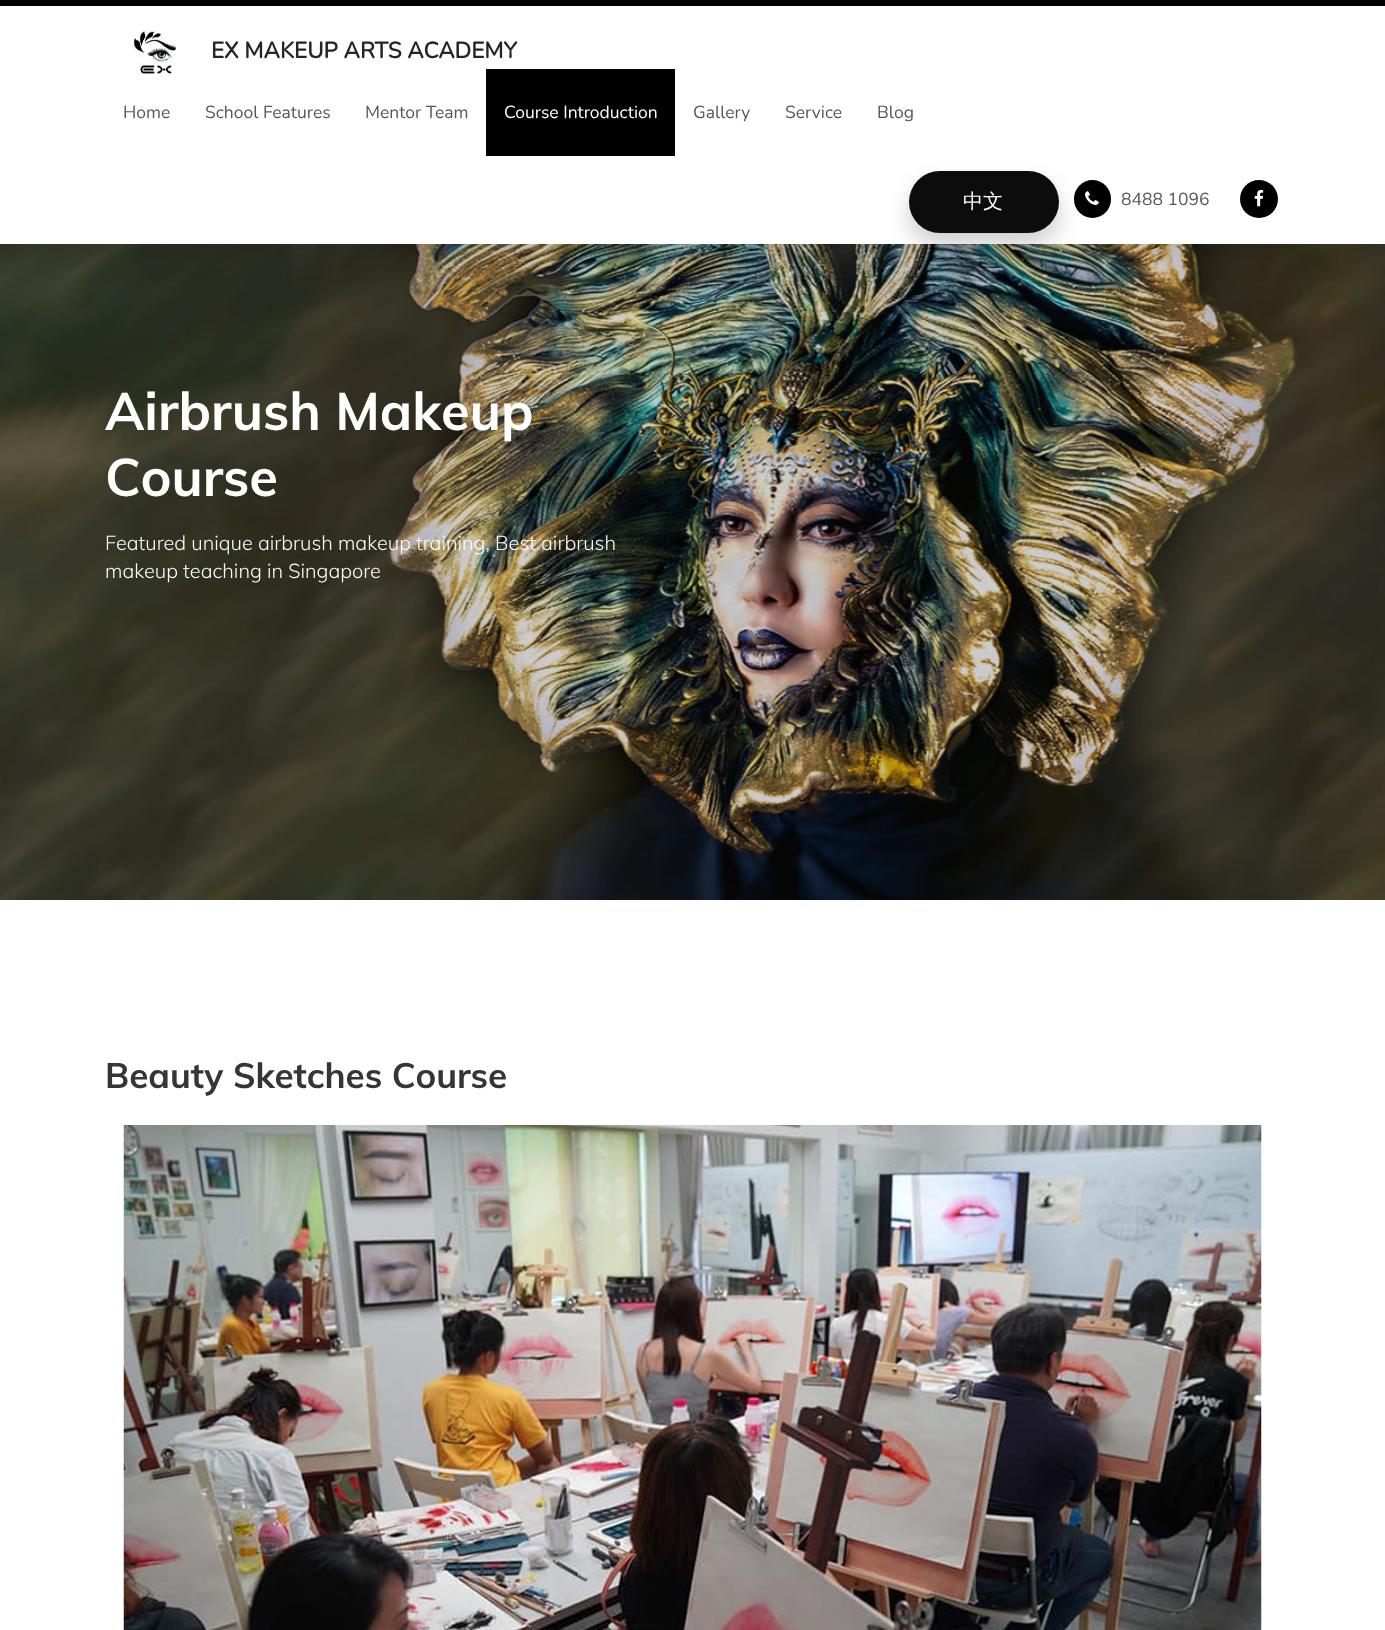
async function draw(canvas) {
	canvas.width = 1385;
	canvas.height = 1630;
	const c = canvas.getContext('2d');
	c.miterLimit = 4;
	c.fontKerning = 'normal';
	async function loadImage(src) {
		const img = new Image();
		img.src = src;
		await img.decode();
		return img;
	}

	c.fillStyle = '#fff';
	c.fillRect(0, 0, 1385, 1630);
	c.drawImage(await loadImage('img4.png'), 0, 244, 1385, 656);
	c.fillStyle = '#0000001a';
	c.filter = 'blur(19px)';
	c.beginPath();
	c.rect(0, 1, 1385, 244);
	c.fill();
	c.filter = 'none';
	c.fillStyle = '#fff';
	c.fillRect(0, 6, 1385, 238);
	c.fillStyle = '#000001';
	c.fillRect(0, 0, 1385, 6);
	c.drawImage(await loadImage('img1.png'), 133, 29, 43, 47);
	c.font = 'bold 22.5px Nunito';
	c.fillStyle = '#252525';
	c.fillText('EX MAKEUP ARTS ACADEMY', 211, 58);
	c.font = '200 17.5px Nunito';
	c.fillStyle = '#575757';
	for (const [text, x, y] of [
		['Home', 123, 118],
		['School Features', 205, 118],
		['Mentor Team', 365, 118],
	]) {
		c.fillText(text, x, y);
	}
	c.fillStyle = '#000001';
	c.fillRect(486, 69, 189, 87);
	c.fillStyle = '#fff';
	c.fillText('Course Introduction', 504, 118);
	c.fillStyle = '#575757';
	for (const [text, x, y] of [
		['Gallery', 693, 118],
		['Service', 785, 118],
		['Blog', 877, 118],
	]) {
		c.fillText(text, x, y);
	}
	c.fillStyle = '#00000033';
	c.filter = 'blur(11px)';
	c.beginPath();
	c.roundRect(909, 183, 150, 61, 30.5);
	c.fill();
	c.filter = 'none';
	c.fillStyle = '#0c0c0c';
	c.beginPath();
	c.roundRect(909, 171, 150, 62, 31);
	c.fill();
	c.font = '500 20px WenQuanYi Zen Hei';
	c.fillStyle = '#fff';
	c.fillText('中文', 963, 208);
	c.fillStyle = '#000001';
	c.beginPath();
	c.roundRect(1074, 180, 37, 38, 18.5);
	c.fill();
	c.drawImage(await loadImage('img2.png'), 1085, 191, 14, 14);
	c.font = '200 17.5px Nunito';
	c.fillStyle = '#575757';
	c.fillText('8488 1096', 1121, 205);
	c.fillStyle = '#000001';
	c.beginPath();
	c.arc(1259, 199, 19, 0, 2 * Math.PI);
	c.fill();
	c.drawImage(await loadImage('img3.png'), 1254, 190, 10, 17);
	c.font = 'bold 52.5px Muli';
	c.fillStyle = '#fff';
	c.fillText('Airbrush Makeup', 105, 430);
	c.fillText('Course', 105, 496);
	c.font = '300 20px Muli';
	c.fillStyle = '#f9f9f9';
	c.fillText('Featured unique airbrush makeup training, Best airbrush', 105, 550);
	c.fillText('makeup teaching in Singapore', 105, 578);
	c.font = 'bold 35px Muli';
	c.fillStyle = '#353535';
	c.fillText('Beauty Sketches Course', 105, 1088);
	c.drawImage(await loadImage('img5.png'), 123, 1125, 1139, 505);
}

draw(document.querySelector('canvas'));
